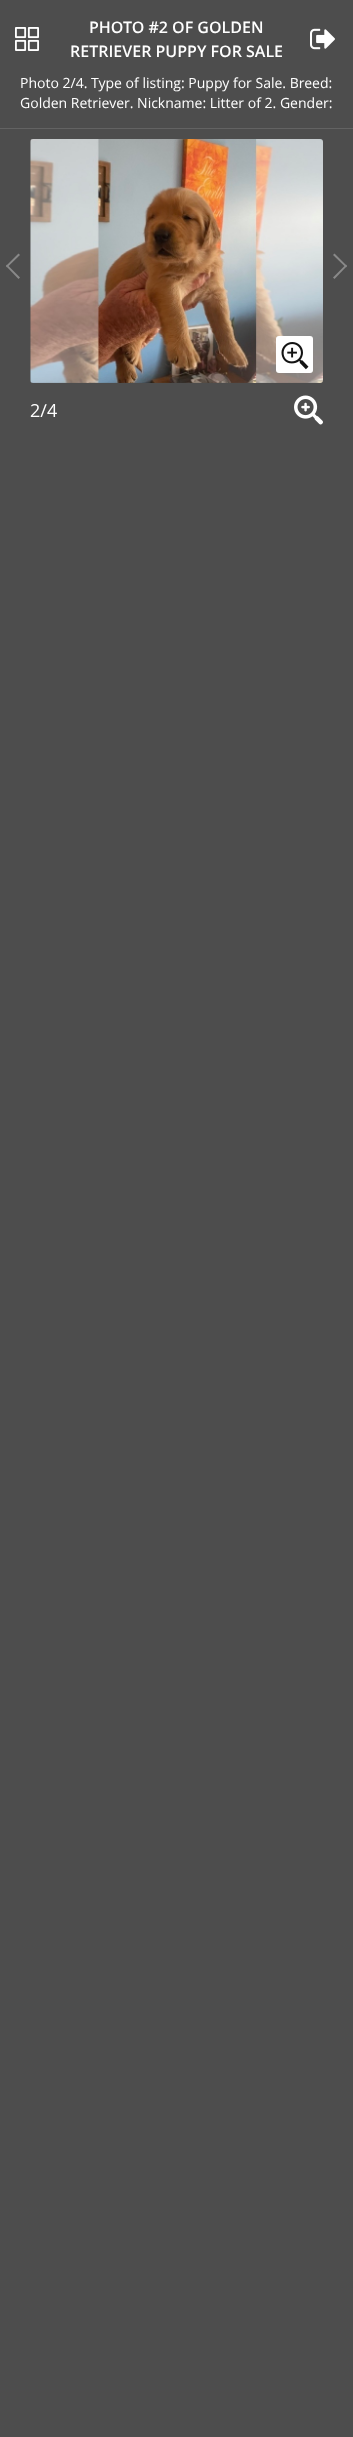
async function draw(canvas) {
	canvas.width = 353;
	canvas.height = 2437;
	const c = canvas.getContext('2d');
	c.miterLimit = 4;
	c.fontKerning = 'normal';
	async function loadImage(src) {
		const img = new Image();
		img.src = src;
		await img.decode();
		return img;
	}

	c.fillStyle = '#4d4d4d';
	c.fillRect(0, 0, 353, 2437);
	c.fillStyle = '#636363';
	c.fillRect(0, 128, 353, 1);
	c.drawImage(await loadImage('img1.png'), 15, 27, 24, 24);
	c.font = '600 16px Open Sans';
	c.fillStyle = '#fff';
	c.fillText('PHOTO #2 OF GOLDEN', 89, 33);
	c.drawImage(await loadImage('img2.png'), 310, 28, 25, 22);
	c.fillText('RETRIEVER PUPPY FOR SALE', 70, 57);
	c.font = '14px Open Sans';
	c.fillText('Photo 2/4. Type of listing: Puppy for Sale. Breed:', 20, 88);
	c.fillText('Golden Retriever. Nickname: Litter of 2. Gender:', 20, 108);
	c.fillStyle = '#898989';
	c.beginPath();
	c.moveTo(18.5, 279);
	c.lineTo(6, 266);
	c.lineTo(7, 264.5);
	c.lineTo(20, 277.5);
	c.closePath();
	c.fill();
	c.beginPath();
	c.moveTo(7, 267.5);
	c.lineTo(6, 266);
	c.lineTo(18.5, 253.5);
	c.lineTo(20, 255);
	c.closePath();
	c.fill();
	c.drawImage(await loadImage('img3.png'), 30, 139, 293, 244);
	c.fillStyle = '#fff';
	c.beginPath();
	c.roundRect(276, 336, 37, 37, 3);
	c.fill();
	c.drawImage(await loadImage('img4.png'), 281, 342, 28, 28);
	c.fillStyle = '#898989';
	c.beginPath();
	c.moveTo(334.5, 253.5);
	c.lineTo(347, 266);
	c.lineTo(346, 267.5);
	c.lineTo(333, 255);
	c.closePath();
	c.fill();
	c.beginPath();
	c.moveTo(346, 264.5);
	c.lineTo(347, 266);
	c.lineTo(334.5, 279);
	c.lineTo(333, 277.5);
	c.closePath();
	c.fill();
	c.font = '18px Open Sans';
	c.fillStyle = '#fff';
	c.fillText('2/4', 30, 417);
	c.drawImage(await loadImage('img5.png'), 294, 395, 29, 30);
}

draw(document.querySelector('canvas'));
